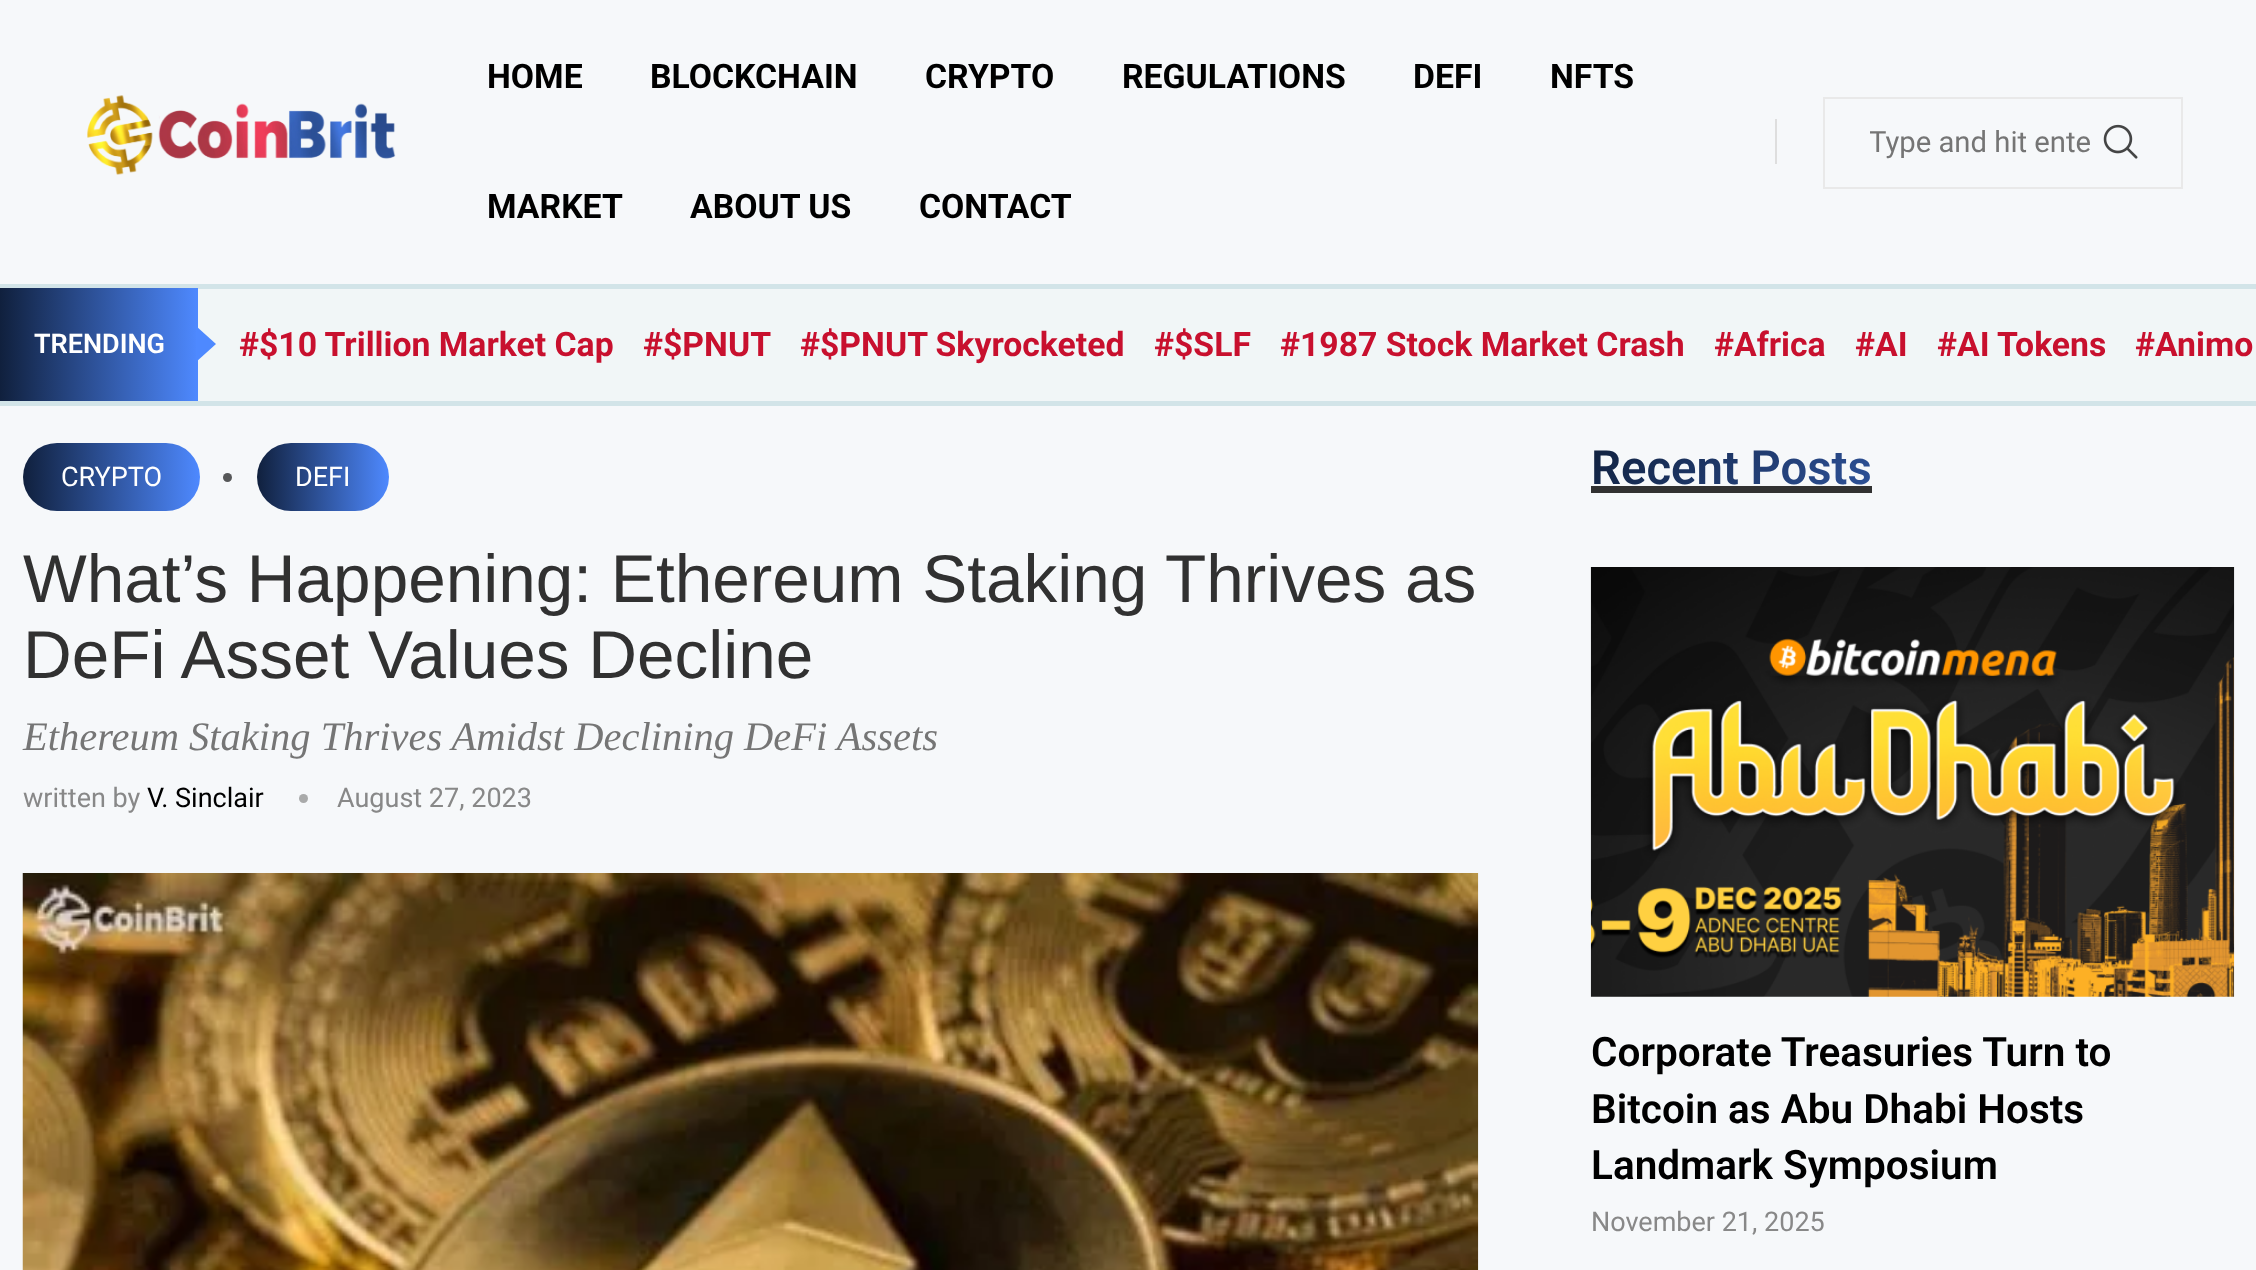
async function draw(canvas) {
	canvas.width = 2256;
	canvas.height = 1270;
	const c = canvas.getContext('2d');
	c.miterLimit = 4;
	c.fontKerning = 'normal';
	async function loadImage(src) {
		const img = new Image();
		img.src = src;
		await img.decode();
		return img;
	}
	let gradient;

	c.fillStyle = '#f6f8fa';
	c.fillRect(0, 0, 2256, 1270);
	c.drawImage(await loadImage('img1.png'), 87, 95, 309, 80);
	c.font = 'bold 33.75px Roboto';
	c.fillStyle = '#000';
	for (const [text, x, y] of [
		['HOME', 487, 88],
		['BLOCKCHAIN', 650, 88],
		['CRYPTO', 925, 88],
		['REGULATIONS', 1122, 88],
		['DEFI', 1413, 88],
		['NFTS', 1550, 88],
		['MARKET', 487, 218],
		['ABOUT US', 690, 218],
		['CONTACT', 919, 218],
	]) {
		c.fillText(text, x, y);
	}
	c.fillStyle = '#dedede';
	c.fillRect(1775, 119, 2, 45);
	c.strokeStyle = '#e9e9e9';
	c.lineWidth = 2;
	c.strokeRect(1824, 98, 358, 90);
	c.save();
	c.beginPath();
	c.rect(1870, 126, 220, 34);
	c.clip();
	c.font = '29.25px Roboto';
	c.fillStyle = '#757575';
	c.fillText('Type and hit ente', 1869, 152);
	c.restore();
	c.drawImage(await loadImage('img2.png'), 2103, 124, 35, 35);
	for (const [x, y, w, h, color] of [
		[198, 289, 2058, 112, '#f1f6f7'],
		[0, 284, 2256, 5, '#d2e4e8'],
		[0, 401, 2256, 5, '#d2e4e8'],
	]) {
		c.fillStyle = color;
		c.fillRect(x, y, w, h);
	}
	gradient = c.createLinearGradient(0, 344, 198, 344);
	gradient.addColorStop(0, '#10203d');
	gradient.addColorStop(1, '#4e89ff');
	c.fillStyle = gradient;
	c.fillRect(0, 288, 198, 113);
	c.font = '600 27px Roboto';
	c.fillStyle = '#fff';
	c.fillText('TRENDING', 34, 353);
	c.fillStyle = '#4e89ff';
	c.beginPath();
	c.moveTo(196, 362);
	c.lineTo(196, 326);
	c.lineTo(216, 344);
	c.closePath();
	c.fill();
	c.font = 'bold 33.75px Roboto';
	c.fillStyle = '#c8102e';
	for (const [text, x, y] of [
		['#$10 Trillion Market Cap', 239, 356],
		['#$PNUT', 643, 356],
		['#$PNUT Skyrocketed', 800, 356],
		['#$SLF', 1154, 356],
		['#1987 Stock Market Crash', 1280, 356],
		['#Africa', 1714, 356],
		['#AI', 1855, 356],
		['#AI Tokens', 1937, 356],
		['#Animo', 2135, 356],
	]) {
		c.fillText(text, x, y);
	}
	gradient = c.createLinearGradient(23, 477, 200, 477);
	gradient.addColorStop(0, '#10203d');
	gradient.addColorStop(1, '#4e89ff');
	c.fillStyle = gradient;
	c.beginPath();
	c.roundRect(23, 443, 177, 68, 34);
	c.fill();
	c.font = '27px Roboto';
	c.fillStyle = '#fff';
	c.fillText('CRYPTO', 61, 486);
	c.fillStyle = '#565758';
	c.beginPath();
	c.arc(227.5, 477.5, 4.5, 0, 2 * Math.PI);
	c.fill();
	gradient = c.createLinearGradient(257, 477, 389, 477);
	gradient.addColorStop(0, '#10203d');
	gradient.addColorStop(1, '#4e89ff');
	c.fillStyle = gradient;
	c.beginPath();
	c.roundRect(257, 443, 132, 68, 34);
	c.fill();
	c.fillStyle = '#fff';
	c.fillText('DEFI', 295, 486);
	c.font = '67.5px Liberation Sans';
	c.fillStyle = '#313131';
	c.fillText('What’s Happening: Ethereum Staking Thrives as', 23, 602);
	c.fillText('DeFi Asset Values Decline', 23, 678);
	c.font = 'italic 40.5px Liberation Serif';
	c.fillStyle = '#757575';
	c.fillText('Ethereum Staking Thrives Amidst Declining DeFi Assets', 23, 750);
	c.font = '27px Roboto';
	c.fillStyle = '#888';
	c.fillText('written by', 23, 807);
	c.fillStyle = '#000';
	c.fillText('V. Sinclair', 147, 807);
	c.fillStyle = '#a9aaaa';
	c.beginPath();
	c.arc(303.5, 798.5, 4.5, 0, 2 * Math.PI);
	c.fill();
	c.fillStyle = '#888';
	c.fillText('August 27, 2023', 337, 807);
	c.drawImage(await loadImage('img3.png'), 22, 873, 1457, 397);
	c.font = '600 47.25px Roboto';
	gradient = c.createLinearGradient(1737, 293, 2089, 645);
	gradient.addColorStop(0, '#10203d');
	gradient.addColorStop(1, '#4e89ff');
	c.fillStyle = gradient;
	c.fillText('Recent Posts', 1591, 484);
	c.fillStyle = '#313131';
	c.fillRect(1591, 486, 281, 7);
	c.drawImage(await loadImage('img4.png'), 1590, 567, 645, 430);
	c.font = '600 40.5px Roboto';
	c.fillStyle = '#000';
	for (const [text, x, y] of [
		['Corporate Treasuries Turn to', 1591, 1066],
		['Bitcoin as Abu Dhabi Hosts', 1591, 1123],
		['Landmark Symposium', 1591, 1179],
	]) {
		c.fillText(text, x, y);
	}
	c.font = '27px Roboto';
	c.fillStyle = '#888';
	c.fillText('November 21, 2025', 1591, 1231);
}

draw(document.querySelector('canvas'));
